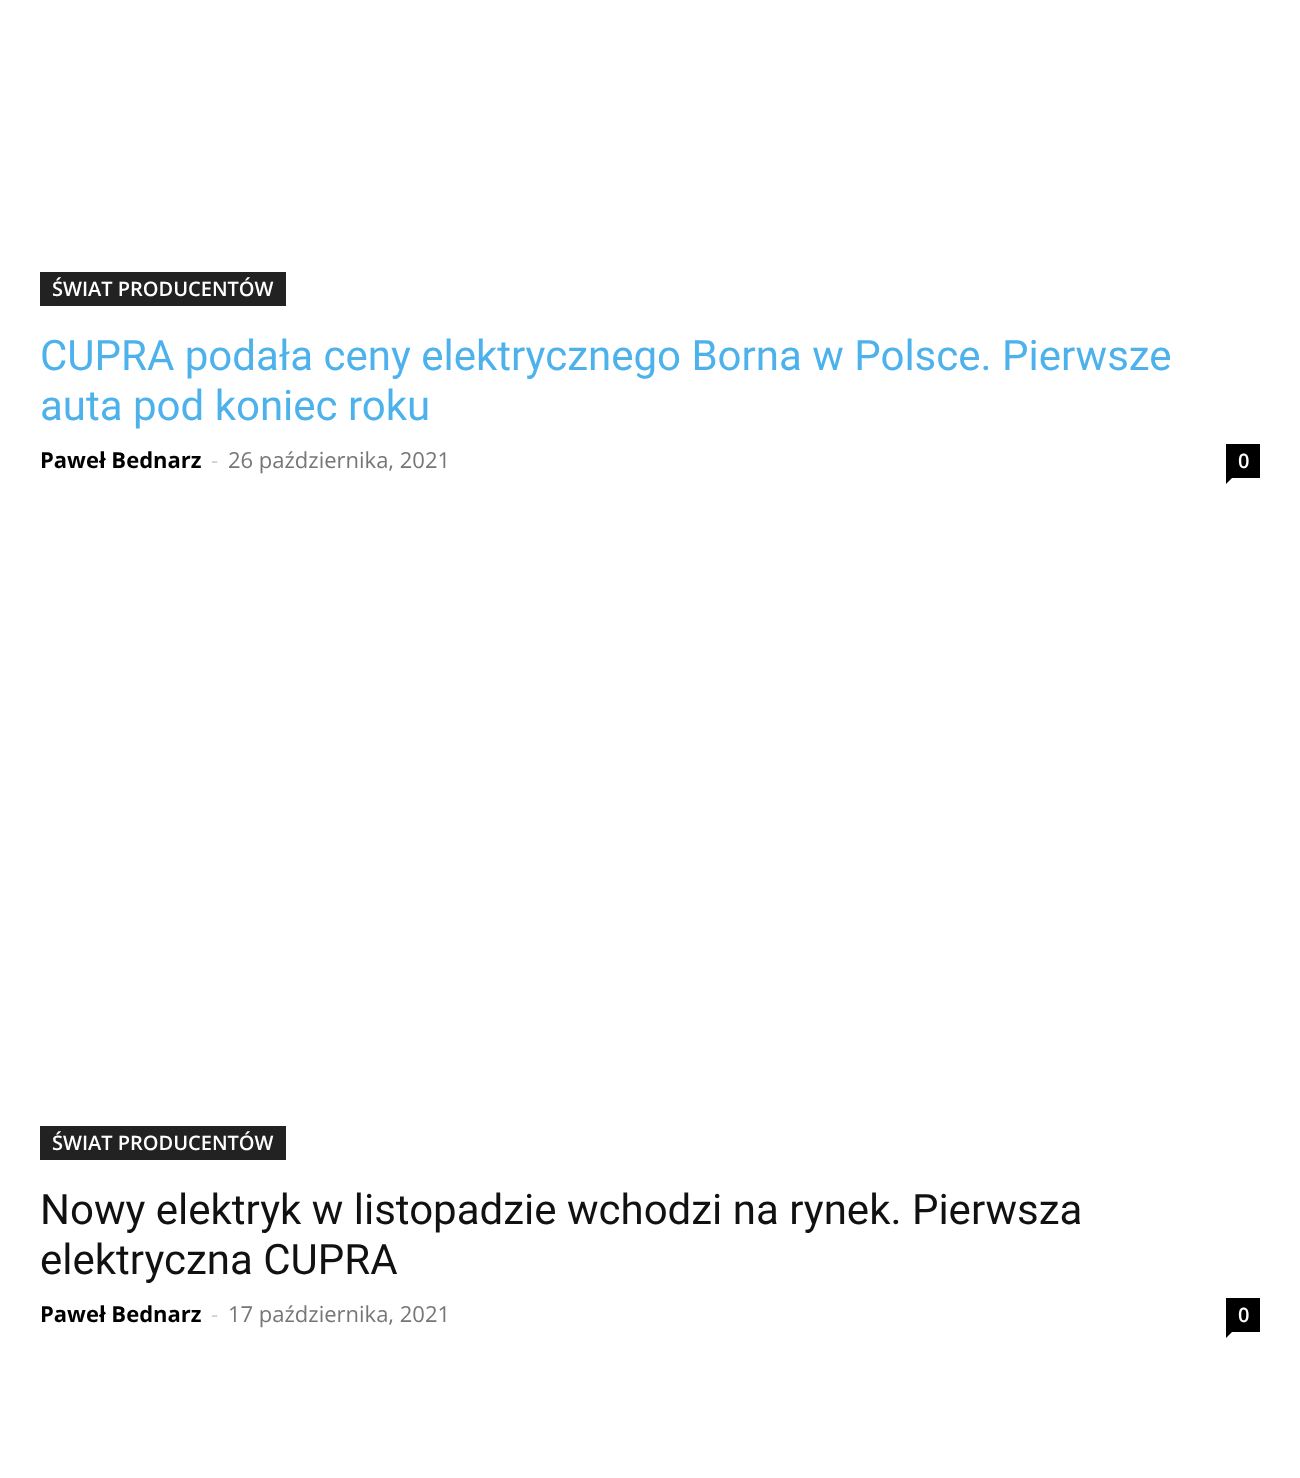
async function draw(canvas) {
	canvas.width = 1300;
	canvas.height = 1478;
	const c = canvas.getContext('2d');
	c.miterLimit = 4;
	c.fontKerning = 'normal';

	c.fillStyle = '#fff';
	c.fillRect(0, 0, 1300, 1478);
	c.fillStyle = '#222';
	c.fillRect(40, 272, 246, 34);
	c.font = '600 20px Open Sans';
	c.fillStyle = '#fff';
	c.fillText('ŚWIAT PRODUCENTÓW', 52, 296);
	c.font = '42px Roboto';
	c.fillStyle = '#4db2ec';
	c.fillText('CUPRA podała ceny elektrycznego Borna w Polsce. Pierwsze', 40, 370);
	c.fillText('auta pod koniec roku', 40, 420);
	c.font = 'bold 22px Open Sans';
	c.fillStyle = '#000';
	c.fillText('Paweł Bednarz', 40, 468);
	c.font = '22px Open Sans';
	c.fillStyle = '#ccc';
	c.fillText('-', 211, 468);
	c.fillStyle = '#767676';
	c.fillText('26 października, 2021', 228, 468);
	c.fillStyle = '#000';
	c.fillRect(1226, 444, 34, 34);
	c.font = '600 20px Open Sans';
	c.fillStyle = '#fff';
	c.fillText('0', 1238, 468);
	c.fillStyle = '#000';
	c.beginPath();
	c.moveTo(1226, 478);
	c.lineTo(1232, 478);
	c.lineTo(1226, 484);
	c.closePath();
	c.fill();
	c.fillStyle = '#222';
	c.fillRect(40, 1126, 246, 34);
	c.fillStyle = '#fff';
	c.fillText('ŚWIAT PRODUCENTÓW', 52, 1150);
	c.font = '42px Roboto';
	c.fillStyle = '#111';
	c.fillText('Nowy elektryk w listopadzie wchodzi na rynek. Pierwsza', 40, 1224);
	c.fillText('elektryczna CUPRA', 40, 1274);
	c.font = 'bold 22px Open Sans';
	c.fillStyle = '#000';
	c.fillText('Paweł Bednarz', 40, 1322);
	c.font = '22px Open Sans';
	c.fillStyle = '#ccc';
	c.fillText('-', 211, 1322);
	c.fillStyle = '#767676';
	c.fillText('17 października, 2021', 228, 1322);
	c.fillStyle = '#000';
	c.fillRect(1226, 1298, 34, 34);
	c.font = '600 20px Open Sans';
	c.fillStyle = '#fff';
	c.fillText('0', 1238, 1322);
	c.fillStyle = '#000';
	c.beginPath();
	c.moveTo(1226, 1332);
	c.lineTo(1232, 1332);
	c.lineTo(1226, 1338);
	c.closePath();
	c.fill();
}

draw(document.querySelector('canvas'));
